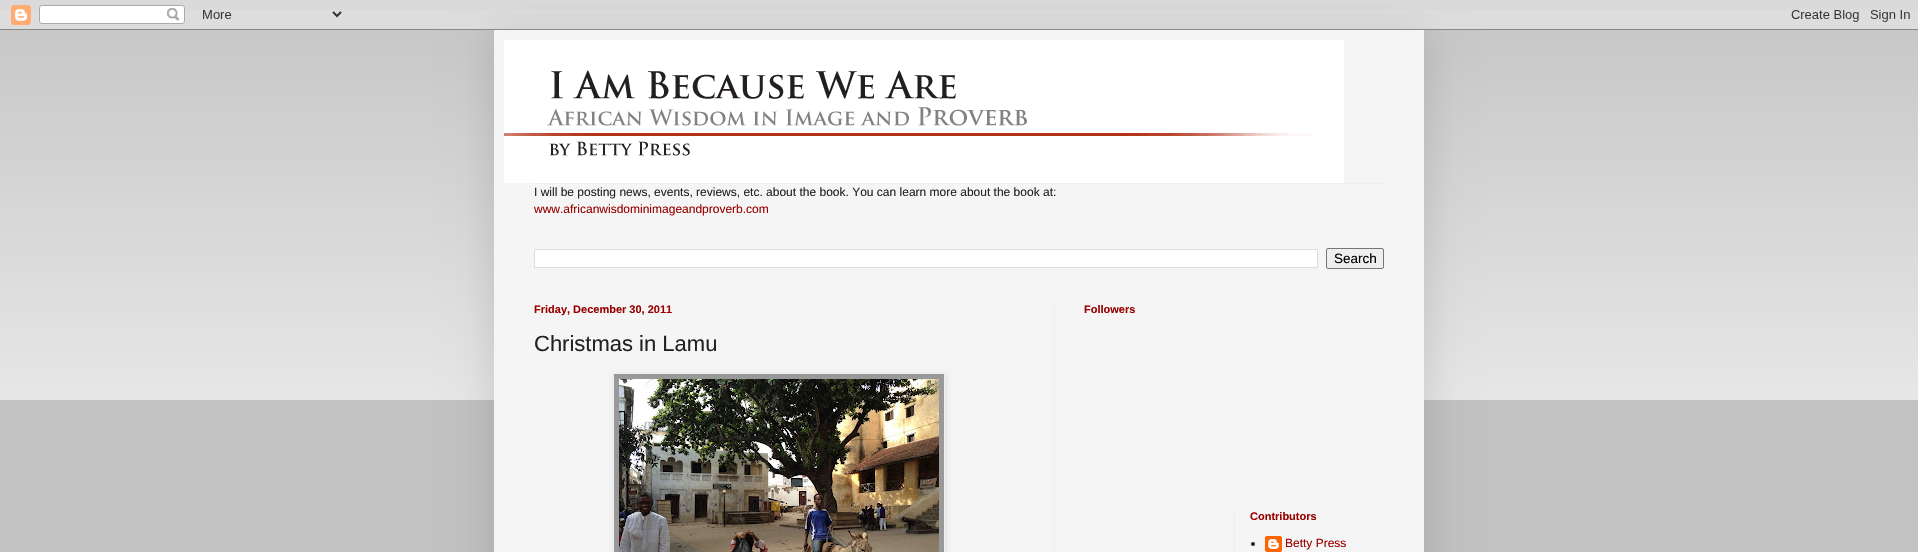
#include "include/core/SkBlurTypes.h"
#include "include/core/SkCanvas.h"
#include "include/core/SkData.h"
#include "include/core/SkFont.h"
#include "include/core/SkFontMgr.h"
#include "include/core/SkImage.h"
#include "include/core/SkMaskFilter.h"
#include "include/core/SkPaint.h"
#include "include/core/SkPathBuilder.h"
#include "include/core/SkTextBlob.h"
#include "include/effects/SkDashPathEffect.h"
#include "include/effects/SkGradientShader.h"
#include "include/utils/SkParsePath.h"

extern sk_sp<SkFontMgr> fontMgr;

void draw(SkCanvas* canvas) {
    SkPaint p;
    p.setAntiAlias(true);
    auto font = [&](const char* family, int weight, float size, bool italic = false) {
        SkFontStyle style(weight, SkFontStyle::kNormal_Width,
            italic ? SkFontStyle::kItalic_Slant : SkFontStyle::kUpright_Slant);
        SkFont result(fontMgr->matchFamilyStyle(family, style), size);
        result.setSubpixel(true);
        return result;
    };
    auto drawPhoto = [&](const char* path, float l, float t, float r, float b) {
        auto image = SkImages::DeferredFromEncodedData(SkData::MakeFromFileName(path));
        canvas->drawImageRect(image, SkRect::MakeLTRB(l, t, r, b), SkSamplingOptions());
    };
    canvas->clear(0xFFC2C2C2);
    drawPhoto("media/2.png", 0, 10, 1918, 400);
    p.setColor(0x26000000);
    p.setMaskFilter(SkMaskFilter::MakeBlur(kNormal_SkBlurStyle, 20));
    canvas->drawRect(SkRect::MakeLTRB(494, 30, 1424, 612), p);
    p.setMaskFilter(nullptr);
    drawPhoto("media/1.png", 0, 0, 1918, 30);
    p.setColor(0xFFF5F5F5);
    canvas->drawRect(SkRect::MakeLTRB(494, 30, 1424, 552), p);
    drawPhoto("media/3.png", 504, 40, 1344, 183);
    p.setColor(0xFFEEEEEE);
    canvas->drawRect(SkRect::MakeLTRB(534, 183, 1384, 184), p);
    auto font1 = font("Liberation Sans", 400, 12);
    p.setColor(0xFF222222);
    canvas->drawString("I will be posting news, events, reviews, etc. about the book. You can learn more about the book at:", 534, 196, font1, p);
    p.setColor(0xFF990000);
    canvas->drawString("www.africanwisdominimageandproverb.com", 534, 213, font1, p);
    p.setColor(0xFFFFFFFF);
    canvas->drawRect(SkRect::MakeLTRB(534.5f, 249.5f, 1317.5f, 267.5f), p);
    p.setStyle(SkPaint::kStroke_Style);
    p.setStrokeWidth(1);
    p.setColor(0xFFDDDDDD);
    canvas->drawRect(SkRect::MakeLTRB(534.5f, 249.5f, 1317.5f, 267.5f), p);
    p.setStyle(SkPaint::kFill_Style);
    p.setColor(0xFFEFEFEF);
    canvas->drawRoundRect(SkRect::MakeLTRB(1326.5f, 248.5f, 1383.5f, 268.5f), 1.5f, 1.5f, p);
    p.setStyle(SkPaint::kStroke_Style);
    p.setColor(0xFF767676);
    canvas->drawRoundRect(SkRect::MakeLTRB(1326.5f, 248.5f, 1383.5f, 268.5f), 1.5f, 1.5f, p);
    auto font2 = font("Liberation Sans", 400, 13.5f);
    p.setStyle(SkPaint::kFill_Style);
    p.setColor(0xFF000000);
    canvas->drawString("Search", 1334, 263, font2, p);
    p.setColor(0xFFEEEEEE);
    canvas->drawRect(SkRect::MakeLTRB(1054, 303, 1055, 552), p);
    auto font3 = font("Liberation Sans", 700, 11);
    p.setColor(0xFF990000);
    canvas->drawString("Friday, December 30, 2011", 534, 313, font3, p);
    auto font4 = font("Liberation Sans", 400, 22);
    p.setColor(0xFF222222);
    canvas->drawString("Christmas in Lamu", 534, 351, font4, p);
    p.setColor(0x1A000000);
    p.setMaskFilter(SkMaskFilter::MakeBlur(kNormal_SkBlurStyle, 2.5f));
    canvas->drawRect(SkRect::MakeLTRB(614, 374, 946, 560), p);
    p.setMaskFilter(nullptr);
    p.setColor(0xFF999999);
    canvas->drawRect(SkRect::MakeLTRB(613.5f, 373.5f, 944.5f, 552.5f), p);
    p.setStyle(SkPaint::kStroke_Style);
    p.setColor(0xFFEEEEEE);
    canvas->drawRect(SkRect::MakeLTRB(613.5f, 373.5f, 944.5f, 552.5f), p);
    drawPhoto("media/4.png", 619, 379, 939, 552);
    p.setStyle(SkPaint::kFill_Style);
    p.setColor(0xFF990000);
    canvas->drawString("Followers", 1084, 313, font3, p);
    p.setColor(0xFFEEEEEE);
    canvas->drawRect(SkRect::MakeLTRB(1234, 510, 1235, 552), p);
    p.setColor(0xFF990000);
    canvas->drawString("Contributors", 1250, 520, font3, p);
    p.setColor(0xFF222222);
    canvas->drawCircle(1253, 544, 2, p);
    drawPhoto("media/5.png", 1265, 536, 1282, 552);
    p.setColor(0xFF990000);
    canvas->drawString("Betty Press", 1285, 547, font1, p);
}
